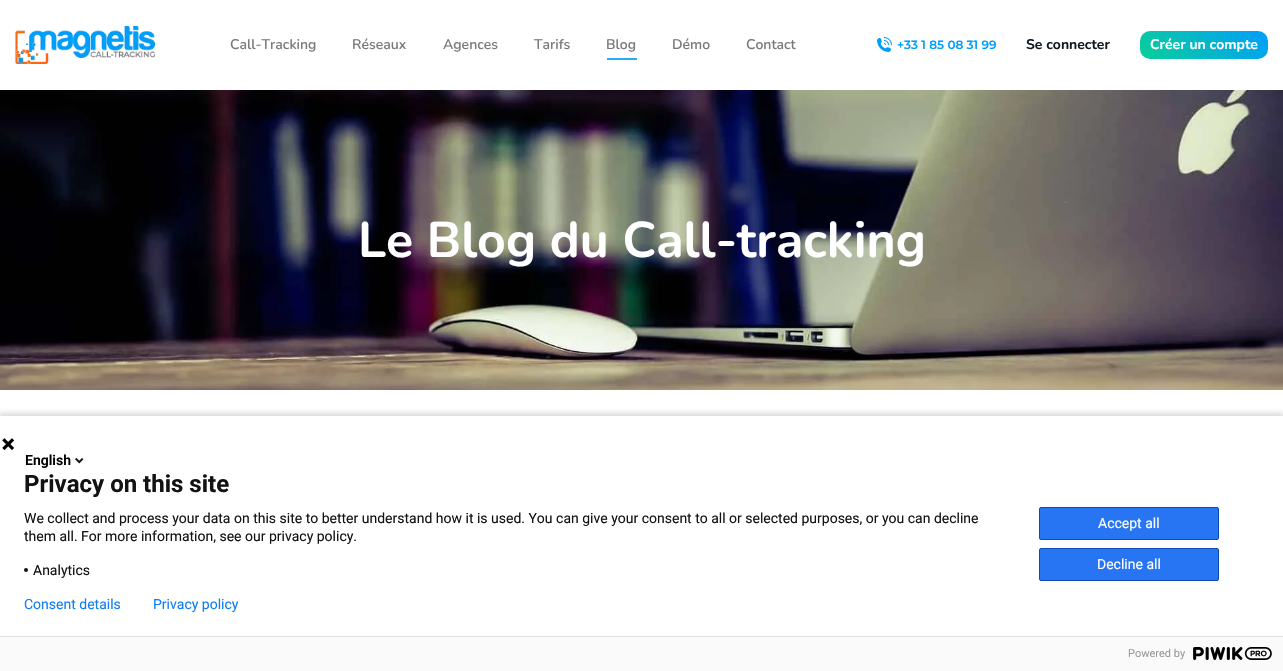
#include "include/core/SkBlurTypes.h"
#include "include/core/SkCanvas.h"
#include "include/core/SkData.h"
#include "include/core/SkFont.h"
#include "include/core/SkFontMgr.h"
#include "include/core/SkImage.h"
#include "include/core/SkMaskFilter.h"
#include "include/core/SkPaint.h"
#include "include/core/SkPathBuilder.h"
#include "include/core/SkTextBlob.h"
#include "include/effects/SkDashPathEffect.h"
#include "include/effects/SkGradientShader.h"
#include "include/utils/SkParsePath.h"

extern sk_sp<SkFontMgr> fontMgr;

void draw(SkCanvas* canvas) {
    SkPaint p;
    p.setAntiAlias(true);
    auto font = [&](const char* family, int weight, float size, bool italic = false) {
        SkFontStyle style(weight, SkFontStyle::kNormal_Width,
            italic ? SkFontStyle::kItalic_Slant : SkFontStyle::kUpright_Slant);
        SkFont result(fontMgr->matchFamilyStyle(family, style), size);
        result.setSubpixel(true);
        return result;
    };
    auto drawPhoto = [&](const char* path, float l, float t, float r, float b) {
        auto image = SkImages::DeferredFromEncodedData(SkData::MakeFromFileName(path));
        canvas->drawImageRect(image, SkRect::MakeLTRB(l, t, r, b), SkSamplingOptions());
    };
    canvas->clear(0xFFFFFFFF);
    drawPhoto("media/1.png", 15, 26, 155, 64);
    auto font1 = font("Nunito", 600, 14);
    p.setColor(0xFF7A7A7A);
    {
        const struct { const char* s; float x, y; } items[] = {
            {"Call-Tracking", 230, 49},
            {"Réseaux", 352, 49},
            {"Agences", 443, 49},
            {"Tarifs", 534, 49},
            {"Blog", 606, 49},
        };
        for (auto [s, x, y] : items) {
            canvas->drawString(s, x, y, font1, p);
        }
    }
    p.setColor(0xFF26ADFC);
    canvas->drawRect(SkRect::MakeLTRB(607, 58, 637, 60), p);
    p.setColor(0xFF7A7A7A);
    canvas->drawString("Démo", 672, 49, font1, p);
    canvas->drawString("Contact", 746, 49, font1, p);
    drawPhoto("media/2.png", 877, 37, 892, 52);
    auto font2 = font("Montserrat", 600, 12);
    p.setColor(0xFF009EFB);
    canvas->drawString("+33 1 85 08 31 99", 897, 49, font2, p);
    auto font3 = font("Nunito", 700, 14);
    p.setColor(0xFF101820);
    canvas->drawString("Se connecter", 1026, 49, font3, p);
    {
        const SkColor colors[] = {0xFF0ACF97, 0xFF009EFB};
        const float stops[] = {0, 1};
        const SkPoint ends[] = {{1165, 84}, {1243, 6}};
        p.setShader(SkGradientShader::MakeLinear(ends, colors, stops, 2, SkTileMode::kClamp));
        p.setAlpha(255);
    }
    canvas->drawRoundRect(SkRect::MakeLTRB(1140, 31, 1268, 59), 10, 10, p);
    p.setShader(nullptr);
    p.setColor(0xFFFFFFFF);
    canvas->drawString("Créer un compte", 1150, 49, font3, p);
    drawPhoto("media/3.png", 0, 90, 1283, 390);
    auto font4 = font("Nunito", 700, 50);
    canvas->drawString("Le Blog du Call-tracking", 358, 257, font4, p);
    p.setColor(0x24000000);
    p.setMaskFilter(SkMaskFilter::MakeBlur(kNormal_SkBlurStyle, 2.5f));
    canvas->drawRect(SkRect::MakeLTRB(-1, 413, 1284, 670), p);
    p.setMaskFilter(nullptr);
    p.setColor(0xFFFFFFFF);
    canvas->drawRect(SkRect::MakeLTRB(0, 416, 1283, 636), p);
    drawPhoto("media/4.png", 2, 438, 15, 451);
    auto font5 = font("Roboto", 600, 14);
    p.setColor(0xFF000000);
    canvas->drawString("English", 25, 465, font5, p);
    drawPhoto("media/5.png", 75, 457, 84, 464);
    auto font6 = font("Roboto", 700, 24);
    p.setColor(0xFF131313);
    canvas->drawString("Privacy on this site", 24, 492, font6, p);
    auto font7 = font("Roboto", 400, 14);
    canvas->drawString("We collect and process your data on this site to better understand how it is used. You can give your consent to all or selected purposes, or you can decline", 24, 523, font7, p);
    canvas->drawString("them all. For more information, see our privacy policy.", 24, 541, font7, p);
    canvas->drawCircle(26, 570, 2, p);
    canvas->drawString("Analytics", 33, 575, font7, p);
    p.setColor(0xFF2775F2);
    canvas->drawRoundRect(SkRect::MakeLTRB(1039.5f, 507.5f, 1218.5f, 539.5f), 1.5f, 1.5f, p);
    p.setStyle(SkPaint::kStroke_Style);
    p.setStrokeWidth(1);
    p.setColor(0xFF0B4BB3);
    canvas->drawRoundRect(SkRect::MakeLTRB(1039.5f, 507.5f, 1218.5f, 539.5f), 1.5f, 1.5f, p);
    p.setStyle(SkPaint::kFill_Style);
    p.setColor(0xFFFFFFFF);
    canvas->drawString("Accept all", 1098, 528, font7, p);
    p.setColor(0xFF2775F2);
    canvas->drawRoundRect(SkRect::MakeLTRB(1039.5f, 548.5f, 1218.5f, 580.5f), 1.5f, 1.5f, p);
    p.setStyle(SkPaint::kStroke_Style);
    p.setColor(0xFF0B4BB3);
    canvas->drawRoundRect(SkRect::MakeLTRB(1039.5f, 548.5f, 1218.5f, 580.5f), 1.5f, 1.5f, p);
    p.setStyle(SkPaint::kFill_Style);
    p.setColor(0xFFFFFFFF);
    canvas->drawString("Decline all", 1097, 569, font7, p);
    p.setColor(0xFF107EF1);
    canvas->drawString("Consent details", 24, 609, font7, p);
    canvas->drawString("Privacy policy", 153, 609, font7, p);
    p.setColor(0xFFFAFAFA);
    canvas->drawRect(SkRect::MakeLTRB(0, 637, 1283, 671), p);
    p.setColor(0xFFDDDDDD);
    canvas->drawRect(SkRect::MakeLTRB(0, 636, 1283, 637), p);
    auto font8 = font("Roboto", 400, 11);
    p.setColor(0xFF999999);
    canvas->drawString("Powered by", 1128, 657, font8, p);
    drawPhoto("media/6.png", 1193, 647, 1272, 660);
}
